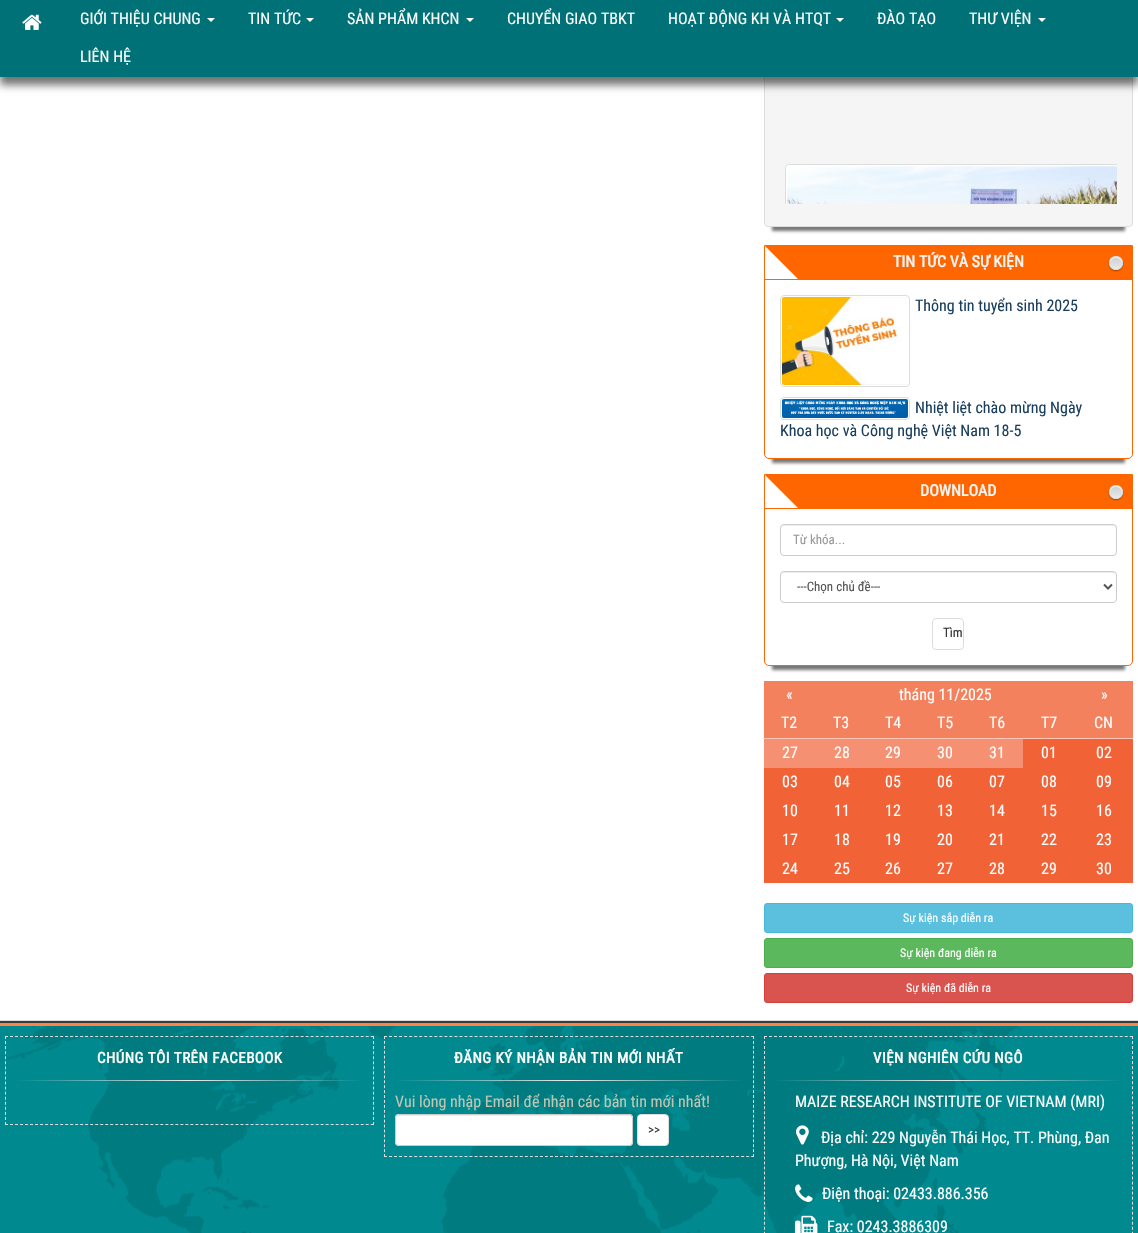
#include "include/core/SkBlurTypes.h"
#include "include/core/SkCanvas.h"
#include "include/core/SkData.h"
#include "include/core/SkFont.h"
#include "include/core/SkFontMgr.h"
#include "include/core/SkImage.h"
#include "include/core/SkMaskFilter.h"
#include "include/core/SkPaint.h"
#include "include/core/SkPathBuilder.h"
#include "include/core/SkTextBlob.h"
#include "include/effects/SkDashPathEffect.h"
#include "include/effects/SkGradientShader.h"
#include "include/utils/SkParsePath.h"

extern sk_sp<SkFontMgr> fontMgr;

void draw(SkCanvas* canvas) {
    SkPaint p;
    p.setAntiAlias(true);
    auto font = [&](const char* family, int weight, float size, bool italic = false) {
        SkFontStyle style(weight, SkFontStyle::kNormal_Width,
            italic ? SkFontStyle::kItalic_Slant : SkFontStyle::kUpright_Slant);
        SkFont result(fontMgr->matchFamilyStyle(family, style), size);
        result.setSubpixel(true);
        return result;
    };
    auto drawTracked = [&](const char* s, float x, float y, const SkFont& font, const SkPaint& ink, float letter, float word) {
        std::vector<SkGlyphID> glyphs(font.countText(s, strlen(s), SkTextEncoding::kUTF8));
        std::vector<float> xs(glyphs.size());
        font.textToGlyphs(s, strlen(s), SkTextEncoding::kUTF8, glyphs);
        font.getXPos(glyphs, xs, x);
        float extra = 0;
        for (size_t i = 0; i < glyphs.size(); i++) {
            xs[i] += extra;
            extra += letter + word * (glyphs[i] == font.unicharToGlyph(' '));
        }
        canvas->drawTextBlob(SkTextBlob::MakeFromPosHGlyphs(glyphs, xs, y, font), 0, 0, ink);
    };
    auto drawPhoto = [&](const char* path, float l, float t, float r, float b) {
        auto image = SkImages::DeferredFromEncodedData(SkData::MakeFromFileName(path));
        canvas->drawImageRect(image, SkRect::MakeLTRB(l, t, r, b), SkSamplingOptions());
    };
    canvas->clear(0xFFFFFFFF);
    p.setColor(0xFF777777);
    p.setMaskFilter(SkMaskFilter::MakeBlur(kNormal_SkBlurStyle, 1.5f));
    canvas->drawRect(SkRect::MakeLTRB(772, -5, 1125, 231), p);
    p.setMaskFilter(nullptr);
    p.setColor(0xFFF5F5F5);
    canvas->drawRoundRect(SkRect::MakeLTRB(764.5f, -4.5f, 1132.5f, 226.5f), 3.5f, 3.5f, p);
    p.setStyle(SkPaint::kStroke_Style);
    p.setStrokeWidth(1);
    p.setColor(0xFFDDDDDD);
    canvas->drawRoundRect(SkRect::MakeLTRB(764.5f, -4.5f, 1132.5f, 226.5f), 3.5f, 3.5f, p);
    p.setStyle(SkPaint::kFill_Style);
    p.setColor(0x8C000000);
    p.setMaskFilter(SkMaskFilter::MakeBlur(kNormal_SkBlurStyle, 4));
    canvas->drawRect(SkRect::MakeLTRB(0, 8, 1138, 85), p);
    p.setMaskFilter(nullptr);
    p.setColor(0xFF007176);
    canvas->drawRect(SkRect::MakeLTRB(0, 0, 1138, 77), p);
    drawPhoto("media/1.png", 22, 14, 42, 30);
    auto font1 = font("Roboto Condensed", 400, 16);
    p.setColor(0xFFFFFFFF);
    canvas->drawString("GIỚI THIỆU CHUNG", 80, 24, font1, p);
    canvas->drawPath(SkPathBuilder().moveTo(207, 18).lineTo(215, 18).lineTo(211, 22).close().detach(), p);
    canvas->drawString("TIN TỨC", 248, 24, font1, p);
    canvas->drawPath(SkPathBuilder().moveTo(306, 18).lineTo(314, 18).lineTo(310, 22).close().detach(), p);
    canvas->drawString("SẢN PHẨM KHCN", 347, 24, font1, p);
    canvas->drawPath(SkPathBuilder().moveTo(466, 18).lineTo(474, 18).lineTo(470, 22).close().detach(), p);
    canvas->drawString("CHUYỂN GIAO TBKT", 507, 24, font1, p);
    canvas->drawString("HOẠT ĐỘNG KH VÀ HTQT", 668, 24, font1, p);
    canvas->drawPath(SkPathBuilder().moveTo(836, 18).lineTo(844, 18).lineTo(840, 22).close().detach(), p);
    canvas->drawString("ĐÀO TẠO", 877, 24, font1, p);
    canvas->drawString("THƯ VIỆN", 969, 24, font1, p);
    canvas->drawPath(SkPathBuilder().moveTo(1038, 18).lineTo(1046, 18).lineTo(1042, 22).close().detach(), p);
    canvas->drawString("LIÊN HỆ", 80, 62, font1, p);
    canvas->drawPath(SkPathBuilder().moveTo(789, 164).lineTo(1117, 164).lineTo(1117, 204).lineTo(785, 204).lineTo(785, 168).cubicTo(785, 166, 787, 164, 789, 164).close().detach(), p);
    canvas->save();
    canvas->clipRect(SkRect::MakeLTRB(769, 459, 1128, 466));
    p.setColor(0xFF777777);
    p.setMaskFilter(SkMaskFilter::MakeBlur(kNormal_SkBlurStyle, 1.5f));
    canvas->drawRect(SkRect::MakeLTRB(772, 265, 1125, 463), p);
    p.setMaskFilter(nullptr);
    canvas->restore();
    p.setStyle(SkPaint::kStroke_Style);
    p.setColor(0xFFFF6600);
    canvas->drawPath(SkPathBuilder().moveTo(764.5f, 245.5f).lineTo(1132.5f, 245.5f).lineTo(1132.5f, 454).cubicTo(1132.5f, 456.5f, 1130.5f, 458.5f, 1128, 458.5f).lineTo(769, 458.5f).cubicTo(766.5f, 458.5f, 764.5f, 456.5f, 764.5f, 454).close().detach(), p);
    p.setStyle(SkPaint::kFill_Style);
    canvas->drawRect(SkRect::MakeLTRB(765, 246, 1132, 280), p);
    drawPhoto("media/3.png", 765, 246, 1124, 279);
    p.setStyle(SkPaint::kStroke_Style);
    p.setColor(0xFFDDDDDD);
    canvas->drawRoundRect(SkRect::MakeLTRB(780.5f, 295.5f, 909.5f, 386.5f), 3.5f, 3.5f, p);
    drawPhoto("media/4.png", 782, 297, 907, 385);
    canvas->save();
    canvas->clipRect(SkRect::MakeLTRB(780, 4, 1117, 204));
    canvas->drawRoundRect(SkRect::MakeLTRB(785.5f, 164.5f, 1121.5f, 389.5f), 3.5f, 3.5f, p);
    canvas->restore();
    drawPhoto("media/2.png", 787, 166, 1117, 204);
    auto font2 = font("Roboto Condensed", 700, 16);
    p.setStyle(SkPaint::kFill_Style);
    p.setColor(0xFFF5F5F5);
    canvas->drawString("TIN TỨC VÀ SỰ KIỆN", 893, 267, font2, p);
    p.setColor(0xFF1A3F5E);
    canvas->drawString("Thông tin tuyển sinh 2025", 915, 311, font1, p);
    p.setStyle(SkPaint::kStroke_Style);
    p.setColor(0xFFDDDDDD);
    canvas->drawRoundRect(SkRect::MakeLTRB(780.5f, 397.5f, 909.5f, 419.5f), 3.5f, 3.5f, p);
    drawPhoto("media/5.png", 782, 399, 908, 418);
    p.setStyle(SkPaint::kFill_Style);
    p.setColor(0xFF1A3F5E);
    canvas->drawString("Nhiệt liệt chào mừng Ngày", 915, 413, font1, p);
    canvas->drawString("Khoa học và Công nghệ Việt Nam 18-5", 780, 436, font1, p);
    canvas->save();
    canvas->clipRect(SkRect::MakeLTRB(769, 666, 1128, 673));
    p.setColor(0xFF777777);
    p.setMaskFilter(SkMaskFilter::MakeBlur(kNormal_SkBlurStyle, 1.5f));
    canvas->drawRect(SkRect::MakeLTRB(772, 494, 1125, 670), p);
    p.setMaskFilter(nullptr);
    canvas->restore();
    p.setStyle(SkPaint::kStroke_Style);
    p.setColor(0xFFFF6600);
    canvas->drawPath(SkPathBuilder().moveTo(764.5f, 474.5f).lineTo(1132.5f, 474.5f).lineTo(1132.5f, 661).cubicTo(1132.5f, 663.5f, 1130.5f, 665.5f, 1128, 665.5f).lineTo(769, 665.5f).cubicTo(766.5f, 665.5f, 764.5f, 663.5f, 764.5f, 661).close().detach(), p);
    p.setStyle(SkPaint::kFill_Style);
    canvas->drawRect(SkRect::MakeLTRB(765, 475, 1132, 509), p);
    drawPhoto("media/3.png", 765, 475, 1124, 508);
    p.setColor(0xFFF5F5F5);
    canvas->drawString("DOWNLOAD", 920, 496, font2, p);
    p.setColor(0xFFECECEC);
    canvas->drawPath(SkPathBuilder().moveTo(784, 526).lineTo(1113, 526).cubicTo(1115, 526, 1116, 527, 1116, 529).cubicTo(1116, 527, 1115, 525, 1113, 525).lineTo(784, 525).cubicTo(782, 525, 781, 527, 781, 529).cubicTo(781, 527, 782, 526, 784, 526).close().detach(), p);
    p.setStyle(SkPaint::kStroke_Style);
    p.setColor(0xFFCCCCCC);
    canvas->drawRoundRect(SkRect::MakeLTRB(780.5f, 524.5f, 1116.5f, 555.5f), 3.5f, 3.5f, p);
    auto font3 = font("Roboto Condensed", 400, 13);
    p.setStyle(SkPaint::kFill_Style);
    p.setColor(0xFF999999);
    canvas->drawString("Từ khóa...", 793, 544, font3, p);
    p.setColor(0xFFECECEC);
    canvas->drawPath(SkPathBuilder().moveTo(784, 573).lineTo(1113, 573).cubicTo(1115, 573, 1116, 574, 1116, 576).cubicTo(1116, 574, 1115, 572, 1113, 572).lineTo(784, 572).cubicTo(782, 572, 781, 574, 781, 576).cubicTo(781, 574, 782, 573, 784, 573).close().detach(), p);
    p.setStyle(SkPaint::kStroke_Style);
    p.setColor(0xFFCCCCCC);
    canvas->drawRoundRect(SkRect::MakeLTRB(780.5f, 571.5f, 1116.5f, 602.5f), 3.5f, 3.5f, p);
    p.setStrokeWidth(2);
    p.setColor(0xFF555555);
    canvas->drawPath(SkPathBuilder().moveTo(1104, 584.5f).lineTo(1108, 588.5f).lineTo(1112, 584.5f).detach(), p);
    p.setStyle(SkPaint::kFill_Style);
    canvas->drawString("---Chọn chủ đề---", 797, 591, font3, p);
    p.setStyle(SkPaint::kStroke_Style);
    p.setStrokeWidth(1);
    p.setColor(0xFFDDDDDD);
    canvas->drawRoundRect(SkRect::MakeLTRB(932.5f, 618.5f, 963.5f, 649.5f), 3.5f, 3.5f, p);
    p.setStyle(SkPaint::kFill_Style);
    p.setColor(0xFF333333);
    canvas->drawString("Tìm", 943, 637, font3, p);
    p.setColor(0xFFF59172);
    canvas->drawRect(SkRect::MakeLTRB(764, 739, 1023, 768), p);
    p.setColor(0xFFF4815E);
    canvas->drawRect(SkRect::MakeLTRB(764, 681, 1133, 709), p);
    p.setColor(0xFFFFFFFF);
    {
        const struct { const char* s; float x, y; } items[] = {
            {"«", 786, 700},
            {"tháng 11/2025", 899, 700},
            {"»", 1101, 700},
        };
        for (auto [s, x, y] : items) {
            canvas->drawString(s, x, y, font1, p);
        }
    }
    p.setColor(0xFFF4815E);
    canvas->drawRect(SkRect::MakeLTRB(764, 709, 1133, 738), p);
    p.setColor(0xFFFFFFFF);
    {
        const struct { const char* s; float x, y; } items[] = {
            {"T2", 781, 728},
            {"T3", 833, 728},
            {"T4", 885, 728},
            {"T5", 937, 728},
            {"T6", 989, 728},
            {"T7", 1041, 728},
        };
        for (auto [s, x, y] : items) {
            canvas->drawString(s, x, y, font1, p);
        }
    }
    p.setColor(0xFFFFC8B7);
    canvas->drawRect(SkRect::MakeLTRB(763, 738, 1133, 739), p);
    p.setColor(0xFFFFFFFF);
    {
        const struct { const char* s; float x, y; } items[] = {
            {"CN", 1094, 728},
            {"27", 782, 758},
            {"28", 834, 758},
            {"29", 885, 758},
            {"30", 937, 758},
            {"31", 989, 758},
        };
        for (auto [s, x, y] : items) {
            canvas->drawString(s, x, y, font1, p);
        }
    }
    p.setColor(0xFFF16236);
    canvas->drawRect(SkRect::MakeLTRB(1023, 739, 1133, 768), p);
    p.setColor(0xFFFFFFFF);
    canvas->drawString("01", 1041, 758, font1, p);
    canvas->drawString("02", 1096, 758, font1, p);
    p.setColor(0xFFF16236);
    canvas->drawRect(SkRect::MakeLTRB(764, 768, 1133, 797), p);
    p.setColor(0xFFFFFFFF);
    {
        const struct { const char* s; float x, y; } items[] = {
            {"03", 782, 787},
            {"04", 834, 787},
            {"05", 885, 787},
            {"06", 937, 787},
            {"07", 989, 787},
            {"08", 1041, 787},
            {"09", 1096, 787},
        };
        for (auto [s, x, y] : items) {
            canvas->drawString(s, x, y, font1, p);
        }
    }
    p.setColor(0xFFF16236);
    canvas->drawRect(SkRect::MakeLTRB(764, 797, 1133, 826), p);
    p.setColor(0xFFFFFFFF);
    {
        const struct { const char* s; float x, y; } items[] = {
            {"10", 782, 816},
            {"11", 834, 816},
            {"12", 885, 816},
            {"13", 937, 816},
            {"14", 989, 816},
            {"15", 1041, 816},
            {"16", 1096, 816},
        };
        for (auto [s, x, y] : items) {
            canvas->drawString(s, x, y, font1, p);
        }
    }
    p.setColor(0xFFF16236);
    canvas->drawRect(SkRect::MakeLTRB(764, 826, 1133, 855), p);
    p.setColor(0xFFFFFFFF);
    {
        const struct { const char* s; float x, y; } items[] = {
            {"17", 782, 845},
            {"18", 834, 845},
            {"19", 885, 845},
            {"20", 937, 845},
            {"21", 989, 845},
            {"22", 1041, 845},
            {"23", 1096, 845},
        };
        for (auto [s, x, y] : items) {
            canvas->drawString(s, x, y, font1, p);
        }
    }
    p.setColor(0xFFF16236);
    canvas->drawRect(SkRect::MakeLTRB(764, 855, 1133, 883), p);
    p.setColor(0xFFFFFFFF);
    {
        const struct { const char* s; float x, y; } items[] = {
            {"24", 782, 874},
            {"25", 834, 874},
            {"26", 885, 874},
            {"27", 937, 874},
            {"28", 989, 874},
            {"29", 1041, 874},
            {"30", 1096, 874},
        };
        for (auto [s, x, y] : items) {
            canvas->drawString(s, x, y, font1, p);
        }
    }
    p.setColor(0xFF5BC0DE);
    canvas->drawRoundRect(SkRect::MakeLTRB(764.5f, 903.5f, 1132.5f, 932.5f), 2.5f, 2.5f, p);
    p.setStyle(SkPaint::kStroke_Style);
    p.setColor(0xFF46B8DA);
    canvas->drawRoundRect(SkRect::MakeLTRB(764.5f, 903.5f, 1132.5f, 932.5f), 2.5f, 2.5f, p);
    auto font4 = font("Roboto Condensed", 400, 12);
    p.setStyle(SkPaint::kFill_Style);
    p.setColor(0xFFFFFFFF);
    canvas->drawString("Sự kiện sắp diễn ra", 903, 922, font4, p);
    p.setColor(0xFF5CB85C);
    canvas->drawRoundRect(SkRect::MakeLTRB(764.5f, 938.5f, 1132.5f, 967.5f), 2.5f, 2.5f, p);
    p.setStyle(SkPaint::kStroke_Style);
    p.setColor(0xFF4CAE4C);
    canvas->drawRoundRect(SkRect::MakeLTRB(764.5f, 938.5f, 1132.5f, 967.5f), 2.5f, 2.5f, p);
    p.setStyle(SkPaint::kFill_Style);
    p.setColor(0xFFFFFFFF);
    canvas->drawString("Sự kiện đang diễn ra", 900, 957, font4, p);
    p.setColor(0xFFD9534F);
    canvas->drawRoundRect(SkRect::MakeLTRB(764.5f, 973.5f, 1132.5f, 1002.5f), 2.5f, 2.5f, p);
    p.setStyle(SkPaint::kStroke_Style);
    p.setColor(0xFFD43F3A);
    canvas->drawRoundRect(SkRect::MakeLTRB(764.5f, 973.5f, 1132.5f, 1002.5f), 2.5f, 2.5f, p);
    p.setStyle(SkPaint::kFill_Style);
    p.setColor(0xFFFFFFFF);
    canvas->drawString("Sự kiện đã diễn ra", 906, 992, font4, p);
    p.setColor(0xFF3B3A3B);
    p.setMaskFilter(SkMaskFilter::MakeBlur(kNormal_SkBlurStyle, 0.5f));
    canvas->drawRect(SkRect::MakeLTRB(-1, 1021, 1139, 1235), p);
    p.setMaskFilter(nullptr);
    p.setColor(0xFF008A90);
    canvas->drawRect(SkRect::MakeLTRB(0, 1026, 1138, 1233), p);
    drawPhoto("media/6.png", 0, 1026, 1022, 1233);
    p.setColor(0xFFFF8247);
    canvas->drawRect(SkRect::MakeLTRB(0, 1023, 1138, 1026), p);
    p.setStyle(SkPaint::kStroke_Style);
    p.setColor(0xFFDDDDDD);
    p.setPathEffect(SkDashPathEffect::Make({{3, 2.01f}}, 0));
    canvas->drawPath(SkPathBuilder().moveTo(5, 1036.5f).lineTo(374, 1036.5f).detach(), p);
    p.setPathEffect(nullptr);
    p.setPathEffect(SkDashPathEffect::Make({{3, 2.06f}}, 0));
    canvas->drawPath(SkPathBuilder().moveTo(373.5f, 1036).lineTo(373.5f, 1125).detach(), p);
    p.setPathEffect(nullptr);
    p.setPathEffect(SkDashPathEffect::Make({{3, 2.01f}}, 0));
    canvas->drawPath(SkPathBuilder().moveTo(5, 1124.5f).lineTo(374, 1124.5f).detach(), p);
    p.setPathEffect(nullptr);
    p.setPathEffect(SkDashPathEffect::Make({{3, 2.06f}}, 0));
    canvas->drawPath(SkPathBuilder().moveTo(5.5f, 1036).lineTo(5.5f, 1125).detach(), p);
    p.setPathEffect(nullptr);
    auto font5 = font("Roboto Condensed", 700, 15);
    p.setStyle(SkPaint::kFill_Style);
    p.setColor(0xFFFFFFFF);
    drawTracked("CHÚNG TÔI TRÊN FACEBOOK", 97, 1063, font5, p, 0.5f, 0);
    {
        const SkColor colors[] = {0x00E9EBEE, 0xFFE9EBEE, 0x00E9EBEE};
        const float stops[] = {0, 0.5f, 1};
        const SkPoint ends[] = {{16, 1081}, {363, 1081}};
        p.setShader(SkGradientShader::MakeLinear(ends, colors, stops, 3, SkTileMode::kClamp));
        p.setAlpha(255);
    }
    canvas->drawRect(SkRect::MakeLTRB(16, 1080, 363, 1081), p);
    p.setStyle(SkPaint::kStroke_Style);
    p.setShader(nullptr);
    p.setColor(0xFFDDDDDD);
    p.setPathEffect(SkDashPathEffect::Make({{3, 2.03f}}, 0));
    canvas->drawPath(SkPathBuilder().moveTo(384, 1036.5f).lineTo(754, 1036.5f).detach(), p);
    p.setPathEffect(nullptr);
    p.setPathEffect(SkDashPathEffect::Make({{3, 1.92f}}, 0));
    canvas->drawPath(SkPathBuilder().moveTo(753.5f, 1036).lineTo(753.5f, 1157).detach(), p);
    p.setPathEffect(nullptr);
    p.setPathEffect(SkDashPathEffect::Make({{3, 2.03f}}, 0));
    canvas->drawPath(SkPathBuilder().moveTo(384, 1156.5f).lineTo(754, 1156.5f).detach(), p);
    p.setPathEffect(nullptr);
    p.setPathEffect(SkDashPathEffect::Make({{3, 1.92f}}, 0));
    canvas->drawPath(SkPathBuilder().moveTo(384.5f, 1036).lineTo(384.5f, 1157).detach(), p);
    p.setPathEffect(nullptr);
    p.setStyle(SkPaint::kFill_Style);
    p.setColor(0xFFFFFFFF);
    drawTracked("ĐĂNG KÝ NHẬN BẢN TIN MỚI NHẤT", 454, 1063, font5, p, 0.5f, 0);
    {
        const SkColor colors[] = {0x00E9EBEE, 0xFFE9EBEE, 0x00E9EBEE};
        const float stops[] = {0, 0.5f, 1};
        const SkPoint ends[] = {{395, 1081}, {743, 1081}};
        p.setShader(SkGradientShader::MakeLinear(ends, colors, stops, 3, SkTileMode::kClamp));
        p.setAlpha(255);
    }
    canvas->drawRect(SkRect::MakeLTRB(395, 1080, 743, 1081), p);
    p.setShader(nullptr);
    p.setColor(0xFFC0C5B1);
    canvas->drawString("Vui lòng nhập Email để nhận các bản tin mới nhất!", 395, 1107, font1, p);
    p.setColor(0xFFFFFFFF);
    canvas->drawRoundRect(SkRect::MakeLTRB(395, 1114, 633, 1146), 4, 4, p);
    p.setColor(0xFFECECEC);
    canvas->drawPath(SkPathBuilder().moveTo(399, 1116).lineTo(630, 1116).lineTo(632, 1117).lineTo(632, 1119).cubicTo(632, 1117, 631, 1115, 629, 1115).lineTo(399, 1115).cubicTo(397, 1115, 396, 1117, 396, 1119).cubicTo(396, 1117, 397, 1116, 399, 1116).close().detach(), p);
    p.setStyle(SkPaint::kStroke_Style);
    p.setColor(0xFFCCCCCC);
    canvas->drawRoundRect(SkRect::MakeLTRB(395.5f, 1114.5f, 632.5f, 1145.5f), 3.5f, 3.5f, p);
    p.setStyle(SkPaint::kFill_Style);
    p.setColor(0xFFFFFFFF);
    canvas->drawRoundRect(SkRect::MakeLTRB(637.5f, 1114.5f, 668.5f, 1145.5f), 3.5f, 3.5f, p);
    p.setStyle(SkPaint::kStroke_Style);
    p.setColor(0xFFDDDDDD);
    canvas->drawRoundRect(SkRect::MakeLTRB(637.5f, 1114.5f, 668.5f, 1145.5f), 3.5f, 3.5f, p);
    p.setStyle(SkPaint::kFill_Style);
    p.setColor(0xFF333333);
    canvas->drawString(">>", 648, 1134, font3, p);
    p.setStyle(SkPaint::kStroke_Style);
    p.setColor(0xFFDDDDDD);
    p.setPathEffect(SkDashPathEffect::Make({{3, 2.01f}}, 0));
    canvas->drawPath(SkPathBuilder().moveTo(764, 1036.5f).lineTo(1133, 1036.5f).detach(), p);
    p.setPathEffect(nullptr);
    p.setPathEffect(SkDashPathEffect::Make({{3, 2.02f}}, 0));
    canvas->drawPath(SkPathBuilder().moveTo(1132.5f, 1036).lineTo(1132.5f, 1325).detach(), p);
    p.setPathEffect(nullptr);
    p.setPathEffect(SkDashPathEffect::Make({{3, 2.02f}}, 0));
    canvas->drawPath(SkPathBuilder().moveTo(764.5f, 1036).lineTo(764.5f, 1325).detach(), p);
    p.setPathEffect(nullptr);
    p.setStyle(SkPaint::kFill_Style);
    p.setColor(0xFFFFFFFF);
    drawTracked("VIỆN NGHIÊN CỨU NGÔ", 873, 1063, font5, p, 0.5f, 0);
    {
        const SkColor colors[] = {0x00E9EBEE, 0xFFE9EBEE, 0x00E9EBEE};
        const float stops[] = {0, 0.5f, 1};
        const SkPoint ends[] = {{775, 1081}, {1122, 1081}};
        p.setShader(SkGradientShader::MakeLinear(ends, colors, stops, 3, SkTileMode::kClamp));
        p.setAlpha(255);
    }
    canvas->drawRect(SkRect::MakeLTRB(775, 1080, 1122, 1081), p);
    p.setShader(nullptr);
    p.setColor(0xFFFFFFFF);
    canvas->drawString("MAIZE RESEARCH INSTITUTE OF VIETNAM (MRI)", 795, 1107, font1, p);
    drawPhoto("media/7.png", 796, 1125, 809, 1145);
    canvas->drawString("Địa chỉ: 229 Nguyễn Thái Học, TT. Phùng, Đan", 821, 1143, font1, p);
    canvas->drawString("Phượng, Hà Nội, Việt Nam", 795, 1166, font1, p);
    drawPhoto("media/8.png", 795, 1184, 813, 1202);
    canvas->drawString("Điện thoại: 02433.886.356", 822, 1199, font1, p);
    drawPhoto("media/9.png", 795, 1215, 818, 1233);
    canvas->drawString("Fax: 0243.3886309", 827, 1232, font1, p);
}
